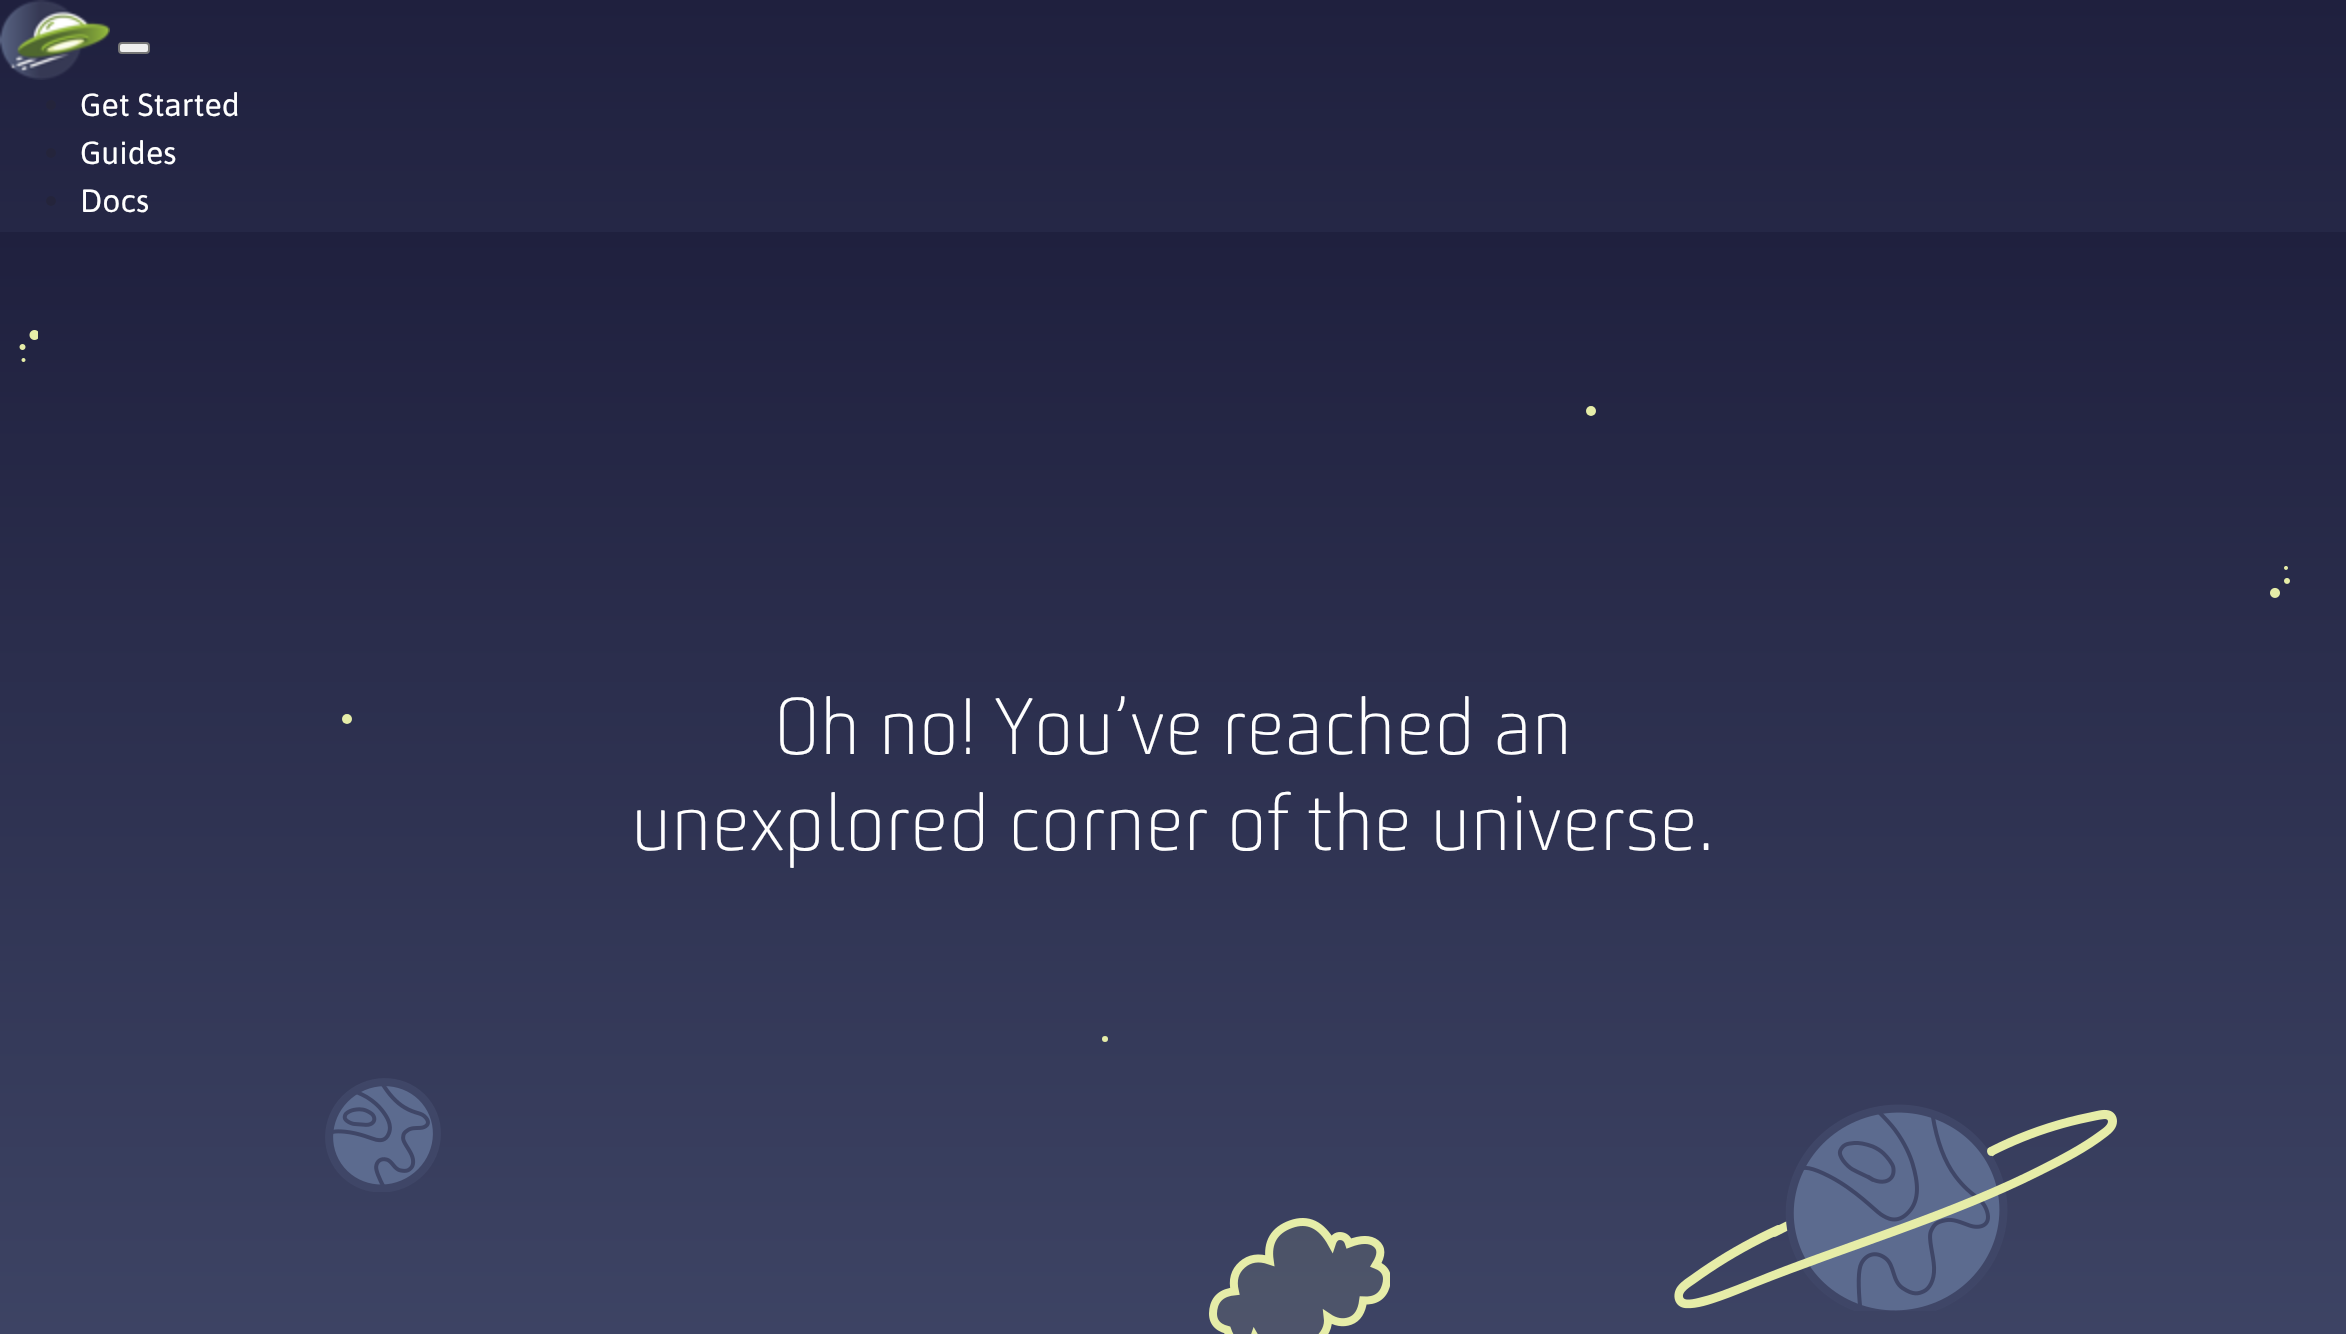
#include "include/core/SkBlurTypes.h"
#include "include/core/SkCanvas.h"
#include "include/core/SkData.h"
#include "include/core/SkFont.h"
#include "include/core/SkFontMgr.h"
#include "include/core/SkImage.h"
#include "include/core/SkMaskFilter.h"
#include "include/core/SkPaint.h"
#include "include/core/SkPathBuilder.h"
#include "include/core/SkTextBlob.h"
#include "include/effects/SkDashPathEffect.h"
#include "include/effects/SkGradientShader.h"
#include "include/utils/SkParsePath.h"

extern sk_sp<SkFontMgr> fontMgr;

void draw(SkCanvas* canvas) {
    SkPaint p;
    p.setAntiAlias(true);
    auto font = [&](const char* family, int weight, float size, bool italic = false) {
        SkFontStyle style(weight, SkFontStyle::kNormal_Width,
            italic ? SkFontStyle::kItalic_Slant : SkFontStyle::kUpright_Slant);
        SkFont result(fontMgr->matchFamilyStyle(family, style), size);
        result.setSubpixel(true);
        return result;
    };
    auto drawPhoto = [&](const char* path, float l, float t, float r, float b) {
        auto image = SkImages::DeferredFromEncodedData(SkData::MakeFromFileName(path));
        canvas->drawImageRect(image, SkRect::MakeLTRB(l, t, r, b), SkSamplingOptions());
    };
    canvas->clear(0xFFFFFFFF);
    {
        const SkColor colors[] = {0xFF515B7D, 0xFF1F203E};
        const float stops[] = {0.09f, 1};
        const SkPoint ends[] = {{1173, 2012}, {1173, 0}};
        p.setShader(SkGradientShader::MakeLinear(ends, colors, stops, 2, SkTileMode::kClamp));
        p.setAlpha(255);
    }
    canvas->drawRect(SkRect::MakeLTRB(0, 0, 2346, 232), p);
    drawPhoto("media/1.png", 0, 0, 110, 80);
    p.setShader(nullptr);
    p.setColor(0xFFEFEFEF);
    canvas->drawRoundRect(SkRect::MakeLTRB(119, 43, 149, 53), 3, 3, p);
    p.setStyle(SkPaint::kStroke_Style);
    p.setStrokeWidth(2);
    p.setColor(0xFF767676);
    canvas->drawRoundRect(SkRect::MakeLTRB(119, 43, 149, 53), 3, 3, p);
    p.setStyle(SkPaint::kFill_Style);
    p.setColor(0xFF24243B);
    canvas->drawCircle(51, 105, 5, p);
    auto font1 = font("Asap", 400, 32);
    p.setColor(0xFFFFFFFF);
    canvas->drawString("Get Started", 80, 116, font1, p);
    p.setColor(0xFF24243B);
    canvas->drawCircle(51, 153, 5, p);
    p.setColor(0xFFFFFFFF);
    canvas->drawString("Guides", 80, 164, font1, p);
    p.setColor(0xFF24243B);
    canvas->drawCircle(51, 201, 5, p);
    p.setColor(0xFFFFFFFF);
    canvas->drawString("Docs", 80, 212, font1, p);
    {
        const SkColor colors[] = {0xFF515B7D, 0xFF1F203E};
        const float stops[] = {0.09f, 1};
        const SkPoint ends[] = {{1173, 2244}, {1173, 232}};
        p.setShader(SkGradientShader::MakeLinear(ends, colors, stops, 2, SkTileMode::kClamp));
        p.setAlpha(255);
    }
    canvas->drawRect(SkRect::MakeLTRB(0, 232, 2346, 1334), p);
    drawPhoto("media/2.png", 19, 330, 38, 362);
    p.setShader(nullptr);
    p.setColor(0xFFE6EDA8);
    canvas->drawCircle(1591, 411, 5, p);
    drawPhoto("media/3.png", 2270, 566, 2290, 598);
    canvas->drawCircle(347, 719, 5, p);
    auto font2 = font("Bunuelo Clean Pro", 300, 80);
    p.setColor(0xFFFFFFFF);
    canvas->drawString("Oh no! You’ve reached an", 774, 754, font2, p);
    canvas->drawString("unexplored corner of the universe.", 631, 850, font2, p);
    p.setColor(0xFFE6EDA8);
    canvas->drawCircle(1105, 1039, 3, p);
    drawPhoto("media/4.png", 325, 1078, 441, 1192);
    drawPhoto("media/5.png", 1209, 1218, 1390, 1334);
    drawPhoto("media/6.png", 1674, 1104, 2117, 1311);
}
